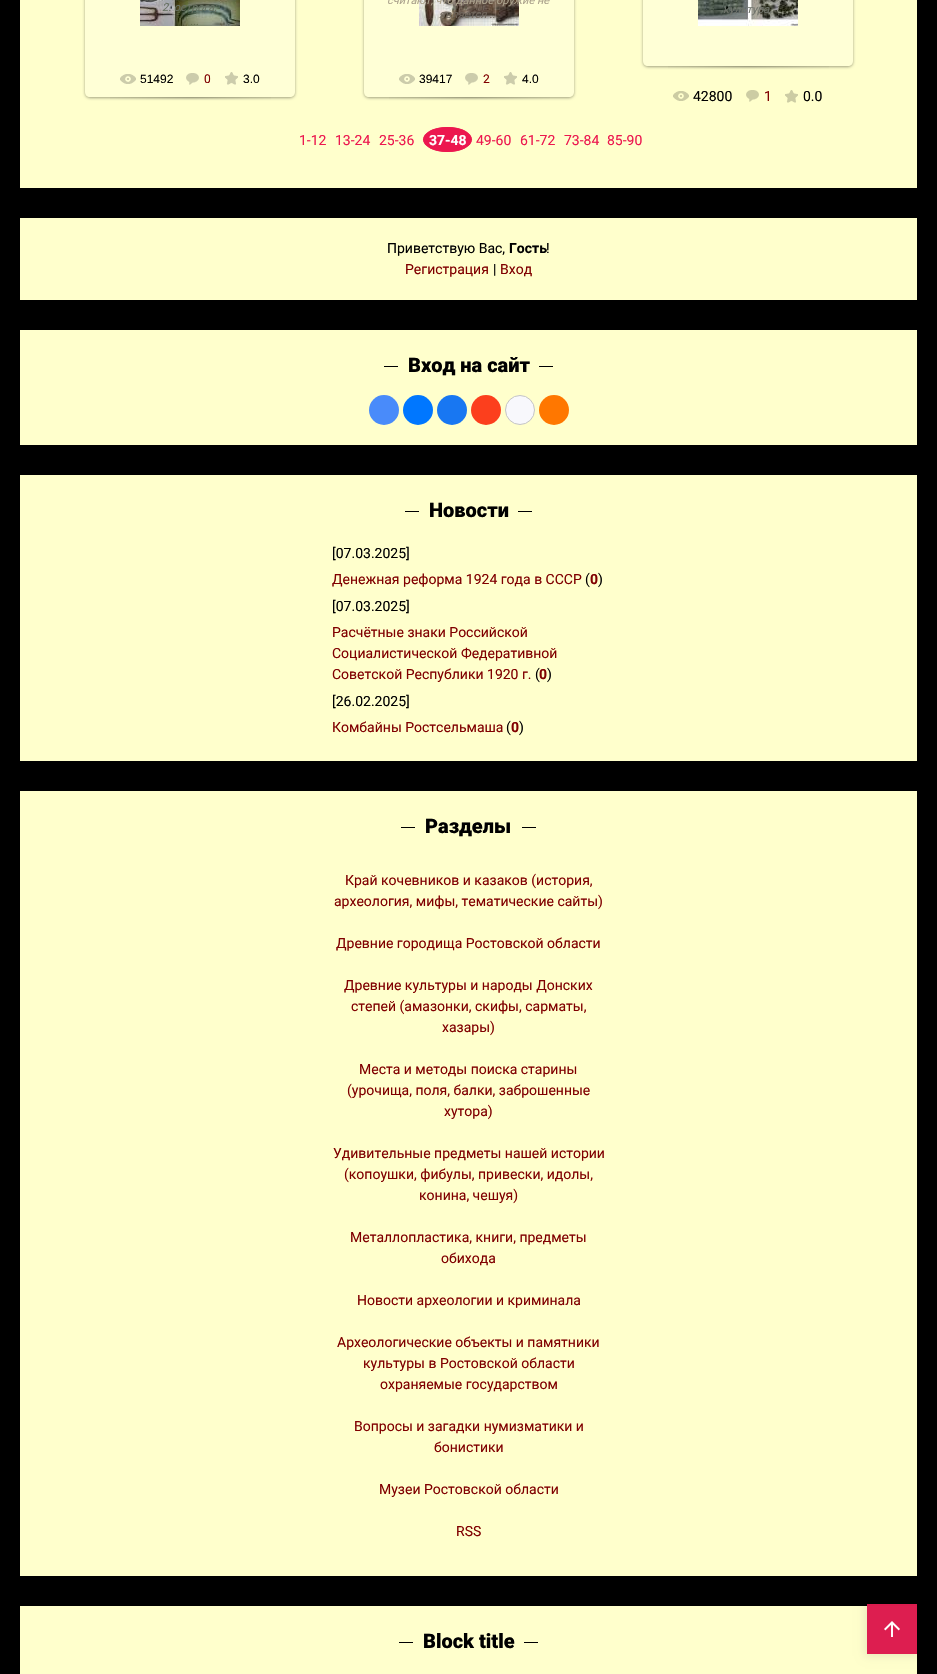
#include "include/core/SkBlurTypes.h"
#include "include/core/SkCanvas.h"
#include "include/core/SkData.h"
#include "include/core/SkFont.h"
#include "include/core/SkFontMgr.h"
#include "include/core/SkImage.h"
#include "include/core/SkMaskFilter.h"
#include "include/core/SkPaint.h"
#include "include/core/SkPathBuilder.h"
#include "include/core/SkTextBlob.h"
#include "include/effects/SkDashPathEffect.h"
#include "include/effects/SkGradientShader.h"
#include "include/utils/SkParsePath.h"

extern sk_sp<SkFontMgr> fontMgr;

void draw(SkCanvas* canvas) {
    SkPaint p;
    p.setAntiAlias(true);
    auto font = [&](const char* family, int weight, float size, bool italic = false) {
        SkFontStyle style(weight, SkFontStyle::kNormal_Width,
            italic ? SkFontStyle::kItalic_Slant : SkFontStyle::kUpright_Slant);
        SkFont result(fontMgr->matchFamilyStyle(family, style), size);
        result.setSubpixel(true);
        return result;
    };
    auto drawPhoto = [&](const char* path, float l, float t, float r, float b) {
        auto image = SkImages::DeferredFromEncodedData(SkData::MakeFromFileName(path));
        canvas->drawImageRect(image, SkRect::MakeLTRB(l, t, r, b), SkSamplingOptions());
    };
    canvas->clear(0xFF000000);
    p.setColor(0xFFDB1C4E);
    canvas->drawRect(SkRect::MakeLTRB(867, 1604, 917, 1606), p);
    p.setColor(0xFFFFFFCC);
    canvas->drawRect(SkRect::MakeLTRB(20, 0, 917, 188), p);
    canvas->save();
    canvas->clipPath(SkPathBuilder(SkPathFillType::kEvenOdd).moveTo(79, 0).lineTo(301, 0).lineTo(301, 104).lineTo(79, 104).close().moveTo(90, -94).lineTo(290, -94).cubicTo(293, -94, 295, -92, 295, -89).lineTo(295, 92).cubicTo(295, 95, 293, 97, 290, 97).lineTo(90, 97).cubicTo(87, 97, 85, 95, 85, 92).lineTo(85, -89).cubicTo(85, -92, 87, -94, 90, -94).close().detach(), true);
    p.setColor(0x5E000000);
    p.setMaskFilter(SkMaskFilter::MakeBlur(kNormal_SkBlurStyle, 1.5f));
    canvas->drawRoundRect(SkRect::MakeLTRB(85, -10, 295, 98), 5, 5, p);
    p.setMaskFilter(nullptr);
    canvas->restore();
    drawPhoto("media/1.png", 85, 0, 295, 97);
    drawPhoto("media/2.png", 140, 0, 240, 26);
    auto font1 = font("Roboto", 400, 11, true);
    p.setColor(0xFF677161);
    canvas->drawString("2. острога;", 162, 11, font1, p);
    p.setColor(0xFF6A7051);
    canvas->drawString("...", 190, 25, font1, p);
    drawPhoto("media/3.png", 120, 74, 136, 84);
    auto font2 = font("Liberation Sans", 400, 12);
    p.setColor(0xFF000000);
    canvas->drawString("51492", 140, 83, font2, p);
    drawPhoto("media/4.png", 186, 73, 199, 85);
    auto font3 = font("Roboto", 400, 12);
    p.setColor(0xFF800000);
    canvas->drawString("0", 204, 83, font3, p);
    drawPhoto("media/5.png", 225, 72, 238, 85);
    p.setColor(0xFF000000);
    canvas->drawString("3.0", 243, 83, font2, p);
    drawPhoto("media/6.png", 110, 97, 271, 100);
    canvas->save();
    canvas->clipPath(SkPathBuilder(SkPathFillType::kEvenOdd).moveTo(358, 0).lineTo(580, 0).lineTo(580, 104).lineTo(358, 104).close().moveTo(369, -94).lineTo(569, -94).cubicTo(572, -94, 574, -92, 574, -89).lineTo(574, 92).cubicTo(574, 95, 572, 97, 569, 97).lineTo(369, 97).cubicTo(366, 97, 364, 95, 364, 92).lineTo(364, -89).cubicTo(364, -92, 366, -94, 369, -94).close().detach(), true);
    p.setColor(0x5E000000);
    p.setMaskFilter(SkMaskFilter::MakeBlur(kNormal_SkBlurStyle, 1.5f));
    canvas->drawRoundRect(SkRect::MakeLTRB(364, -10, 574, 98), 5, 5, p);
    p.setMaskFilter(nullptr);
    canvas->restore();
    drawPhoto("media/1.png", 364, 0, 574, 97);
    drawPhoto("media/7.png", 419, 0, 519, 26);
    p.setColor(0xFFACA38D);
    canvas->drawString("считают, что данное оружие не", 387, 4, font1, p);
    p.setColor(0xFF70675D);
    canvas->drawString("является ...", 439, 18, font1, p);
    drawPhoto("media/3.png", 399, 74, 415, 84);
    p.setColor(0xFF000000);
    canvas->drawString("39417", 419, 83, font2, p);
    drawPhoto("media/4.png", 465, 73, 478, 85);
    p.setColor(0xFF800000);
    canvas->drawString("2", 483, 83, font3, p);
    drawPhoto("media/5.png", 504, 72, 517, 85);
    p.setColor(0xFF000000);
    canvas->drawString("4.0", 522, 83, font2, p);
    drawPhoto("media/6.png", 389, 97, 550, 100);
    canvas->save();
    canvas->clipPath(SkPathBuilder(SkPathFillType::kEvenOdd).moveTo(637, 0).lineTo(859, 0).lineTo(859, 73).lineTo(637, 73).close().moveTo(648, -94).lineTo(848, -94).cubicTo(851, -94, 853, -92, 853, -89).lineTo(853, 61).cubicTo(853, 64, 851, 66, 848, 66).lineTo(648, 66).cubicTo(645, 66, 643, 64, 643, 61).lineTo(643, -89).cubicTo(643, -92, 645, -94, 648, -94).close().detach(), true);
    p.setColor(0x5E000000);
    p.setMaskFilter(SkMaskFilter::MakeBlur(kNormal_SkBlurStyle, 1.5f));
    canvas->drawRoundRect(SkRect::MakeLTRB(643, -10, 853, 67), 5, 5, p);
    p.setMaskFilter(nullptr);
    canvas->restore();
    drawPhoto("media/8.png", 643, 0, 853, 66);
    drawPhoto("media/9.png", 698, 0, 798, 26);
    p.setColor(0xFF6F736B);
    canvas->drawString("культура.", 723, 13, font1, p);
    drawPhoto("media/6.png", 668, 66, 829, 69);
    drawPhoto("media/10.png", 673, 91, 689, 101);
    auto font4 = font("Roboto", 400, 14);
    p.setColor(0xFF000000);
    canvas->drawString("42800", 693, 101, font4, p);
    drawPhoto("media/11.png", 746, 90, 759, 102);
    p.setColor(0xFF800000);
    canvas->drawString("1", 764, 101, font4, p);
    drawPhoto("media/12.png", 785, 90, 798, 103);
    p.setColor(0xFF000000);
    canvas->drawString("0.0", 803, 101, font4, p);
    p.setColor(0xFFEC174F);
    {
        const struct { const char* s; float x, y; } items[] = {
            {"1-12", 299, 145},
            {"13-24", 335, 145},
            {"25-36", 379, 145},
        };
        for (auto [s, x, y] : items) {
            canvas->drawString(s, x, y, font4, p);
        }
    }
    canvas->drawOval(SkRect::MakeLTRB(423, 127, 472, 152), p);
    p.setStyle(SkPaint::kStroke_Style);
    p.setStrokeWidth(1);
    canvas->drawPath(SkPathBuilder().moveTo(447.5f, 127.5f).cubicTo(479, 127.5f, 479, 151.5f, 447.5f, 151.5f).cubicTo(416, 151.5f, 416, 127.5f, 447.5f, 127.5f).close().detach(), p);
    auto font5 = font("Roboto", 700, 14);
    p.setStyle(SkPaint::kFill_Style);
    p.setColor(0xFFFFFFFF);
    canvas->drawString("37-48", 429, 145, font5, p);
    p.setColor(0xFFEC174F);
    {
        const struct { const char* s; float x, y; } items[] = {
            {"49-60", 476, 145},
            {"61-72", 520, 145},
            {"73-84", 564, 145},
            {"85-90", 607, 145},
        };
        for (auto [s, x, y] : items) {
            canvas->drawString(s, x, y, font4, p);
        }
    }
    p.setColor(0xFFFFFFCC);
    canvas->drawRect(SkRect::MakeLTRB(20, 218, 917, 300), p);
    p.setColor(0xFF000000);
    canvas->drawString("Приветствую Вас,", 387, 253, font4, p);
    canvas->drawString("Гость", 509, 253, font5, p);
    canvas->drawString("!", 546, 253, font4, p);
    p.setColor(0xFF800000);
    canvas->drawString("Регистрация", 405, 274, font4, p);
    p.setColor(0xFF000000);
    canvas->drawString("|", 493, 274, font4, p);
    p.setColor(0xFF800000);
    canvas->drawString("Вход", 500, 274, font4, p);
    p.setColor(0xFFFFFFCC);
    canvas->drawRect(SkRect::MakeLTRB(20, 330, 917, 445), p);
    p.setColor(0xFF000000);
    canvas->drawRect(SkRect::MakeLTRB(384, 366, 398, 367), p);
    auto font6 = font("Roboto", 900, 20);
    canvas->drawString("Вход на сайт", 408, 372, font6, p);
    canvas->drawRect(SkRect::MakeLTRB(539, 366, 553, 367), p);
    p.setColor(0xFF498BFA);
    canvas->drawCircle(384, 410, 15, p);
    p.setColor(0xFF0077FF);
    canvas->drawCircle(418, 410, 15, p);
    p.setColor(0xFF1877F2);
    canvas->drawCircle(452, 410, 15, p);
    p.setColor(0xFFFC3F1D);
    canvas->drawCircle(486, 410, 15, p);
    p.setColor(0xFFF8F8FC);
    canvas->drawCircle(520, 410, 14.5f, p);
    p.setStyle(SkPaint::kStroke_Style);
    p.setColor(0xFFC4C4C4);
    canvas->drawCircle(520, 410, 14.5f, p);
    p.setStyle(SkPaint::kFill_Style);
    p.setColor(0xFFFF7700);
    canvas->drawCircle(554, 410, 15, p);
    p.setColor(0xFFFFFFCC);
    canvas->drawRect(SkRect::MakeLTRB(20, 475, 917, 761), p);
    p.setColor(0xFF000000);
    canvas->drawRect(SkRect::MakeLTRB(405, 511, 419, 512), p);
    canvas->drawString("Новости", 429, 517, font6, p);
    canvas->drawRect(SkRect::MakeLTRB(518, 511, 532, 512), p);
    canvas->drawString("[07.03.2025]", 332, 558, font4, p);
    p.setColor(0xFF800000);
    canvas->drawString("Денежная реформа 1924 года в СССР", 332, 584, font4, p);
    p.setColor(0xFF000000);
    canvas->drawString("(", 585, 584, font4, p);
    p.setColor(0xFF800000);
    canvas->drawString("0", 590, 584, font5, p);
    p.setColor(0xFF000000);
    canvas->drawString(")", 598, 584, font4, p);
    canvas->drawString("[07.03.2025]", 332, 611, font4, p);
    p.setColor(0xFF800000);
    {
        const struct { const char* s; float x, y; } items[] = {
            {"Расчётные знаки Российской", 332, 637},
            {"Социалистической Федеративной", 332, 658},
            {"Советской Республики 1920 г.", 332, 679},
        };
        for (auto [s, x, y] : items) {
            canvas->drawString(s, x, y, font4, p);
        }
    }
    p.setColor(0xFF000000);
    canvas->drawString("(", 535, 679, font4, p);
    p.setColor(0xFF800000);
    canvas->drawString("0", 539, 679, font5, p);
    p.setColor(0xFF000000);
    canvas->drawString(")", 547, 679, font4, p);
    canvas->drawString("[26.02.2025]", 332, 706, font4, p);
    p.setColor(0xFF800000);
    canvas->drawString("Комбайны Ростсельмаша", 332, 732, font4, p);
    p.setColor(0xFF000000);
    canvas->drawString("(", 506, 732, font4, p);
    p.setColor(0xFF800000);
    canvas->drawString("0", 511, 732, font5, p);
    p.setColor(0xFF000000);
    canvas->drawString(")", 519, 732, font4, p);
    p.setColor(0xFFFFFFCC);
    canvas->drawRect(SkRect::MakeLTRB(20, 791, 917, 1576), p);
    p.setColor(0xFF000000);
    canvas->drawRect(SkRect::MakeLTRB(401, 827, 415, 828), p);
    canvas->drawString("Разделы", 425, 833, font6, p);
    canvas->drawRect(SkRect::MakeLTRB(522, 827, 536, 828), p);
    p.setColor(0xFF800000);
    {
        const struct { const char* s; float x, y; } items[] = {
            {"Край кочевников и казаков (история,", 345, 885},
            {"археология, мифы, тематические сайты)", 334, 906},
            {"Древние городища Ростовской области", 336, 948},
            {"Древние культуры и народы Донских", 344, 990},
            {"степей (амазонки, скифы, сарматы,", 351, 1011},
            {"хазары)", 442, 1032},
            {"Места и методы поиска старины", 359, 1074},
            {"(урочища, поля, балки, заброшенные", 347, 1095},
            {"хутора)", 444, 1116},
            {"Удивительные предметы нашей истории", 333, 1158},
            {"(копоушки, фибулы, привески, идолы,", 344, 1179},
            {"конина, чешуя)", 419, 1200},
            {"Металлопластика, книги, предметы", 350, 1242},
            {"обихода", 441, 1263},
            {"Новости археологии и криминала", 357, 1305},
            {"Археологические объекты и памятники", 337, 1347},
            {"культуры в Ростовской области", 363, 1368},
            {"охраняемые государством", 380, 1389},
            {"Вопросы и загадки нумизматики и", 354, 1431},
            {"бонистики", 434, 1452},
            {"Музеи Ростовской области", 379, 1494},
            {"RSS", 456, 1536},
        };
        for (auto [s, x, y] : items) {
            canvas->drawString(s, x, y, font4, p);
        }
    }
    {
        const struct { float l, t, r, b; SkColor color; } items[] = {
            {20, 1606, 917, 1674, 0xFFFFFFCC},
            {867, 1606, 917, 1654, 0xFFDD1E50},
            {399, 1642, 413, 1643, 0xFF000000},
        };
        for (auto [l, t, r, b, color] : items) {
            p.setColor(color);
            canvas->drawRect(SkRect::MakeLTRB(l, t, r, b), p);
        }
    }
    canvas->drawString("Block title", 423, 1648, font6, p);
    canvas->drawRect(SkRect::MakeLTRB(524, 1642, 538, 1643), p);
    canvas->save();
    canvas->clipPath(SkPathBuilder(SkPathFillType::kEvenOdd).moveTo(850, 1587).lineTo(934, 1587).lineTo(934, 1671).lineTo(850, 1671).close().moveTo(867, 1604).lineTo(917, 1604).lineTo(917, 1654).lineTo(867, 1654).close().detach(), true);
    p.setColor(0x17000000);
    p.setMaskFilter(SkMaskFilter::MakeBlur(kNormal_SkBlurStyle, 4.5f));
    canvas->drawRect(SkRect::MakeLTRB(865, 1602, 919, 1656), p);
    p.setMaskFilter(nullptr);
    canvas->restore();
    drawPhoto("media/13.png", 884, 1621, 900, 1637);
}
